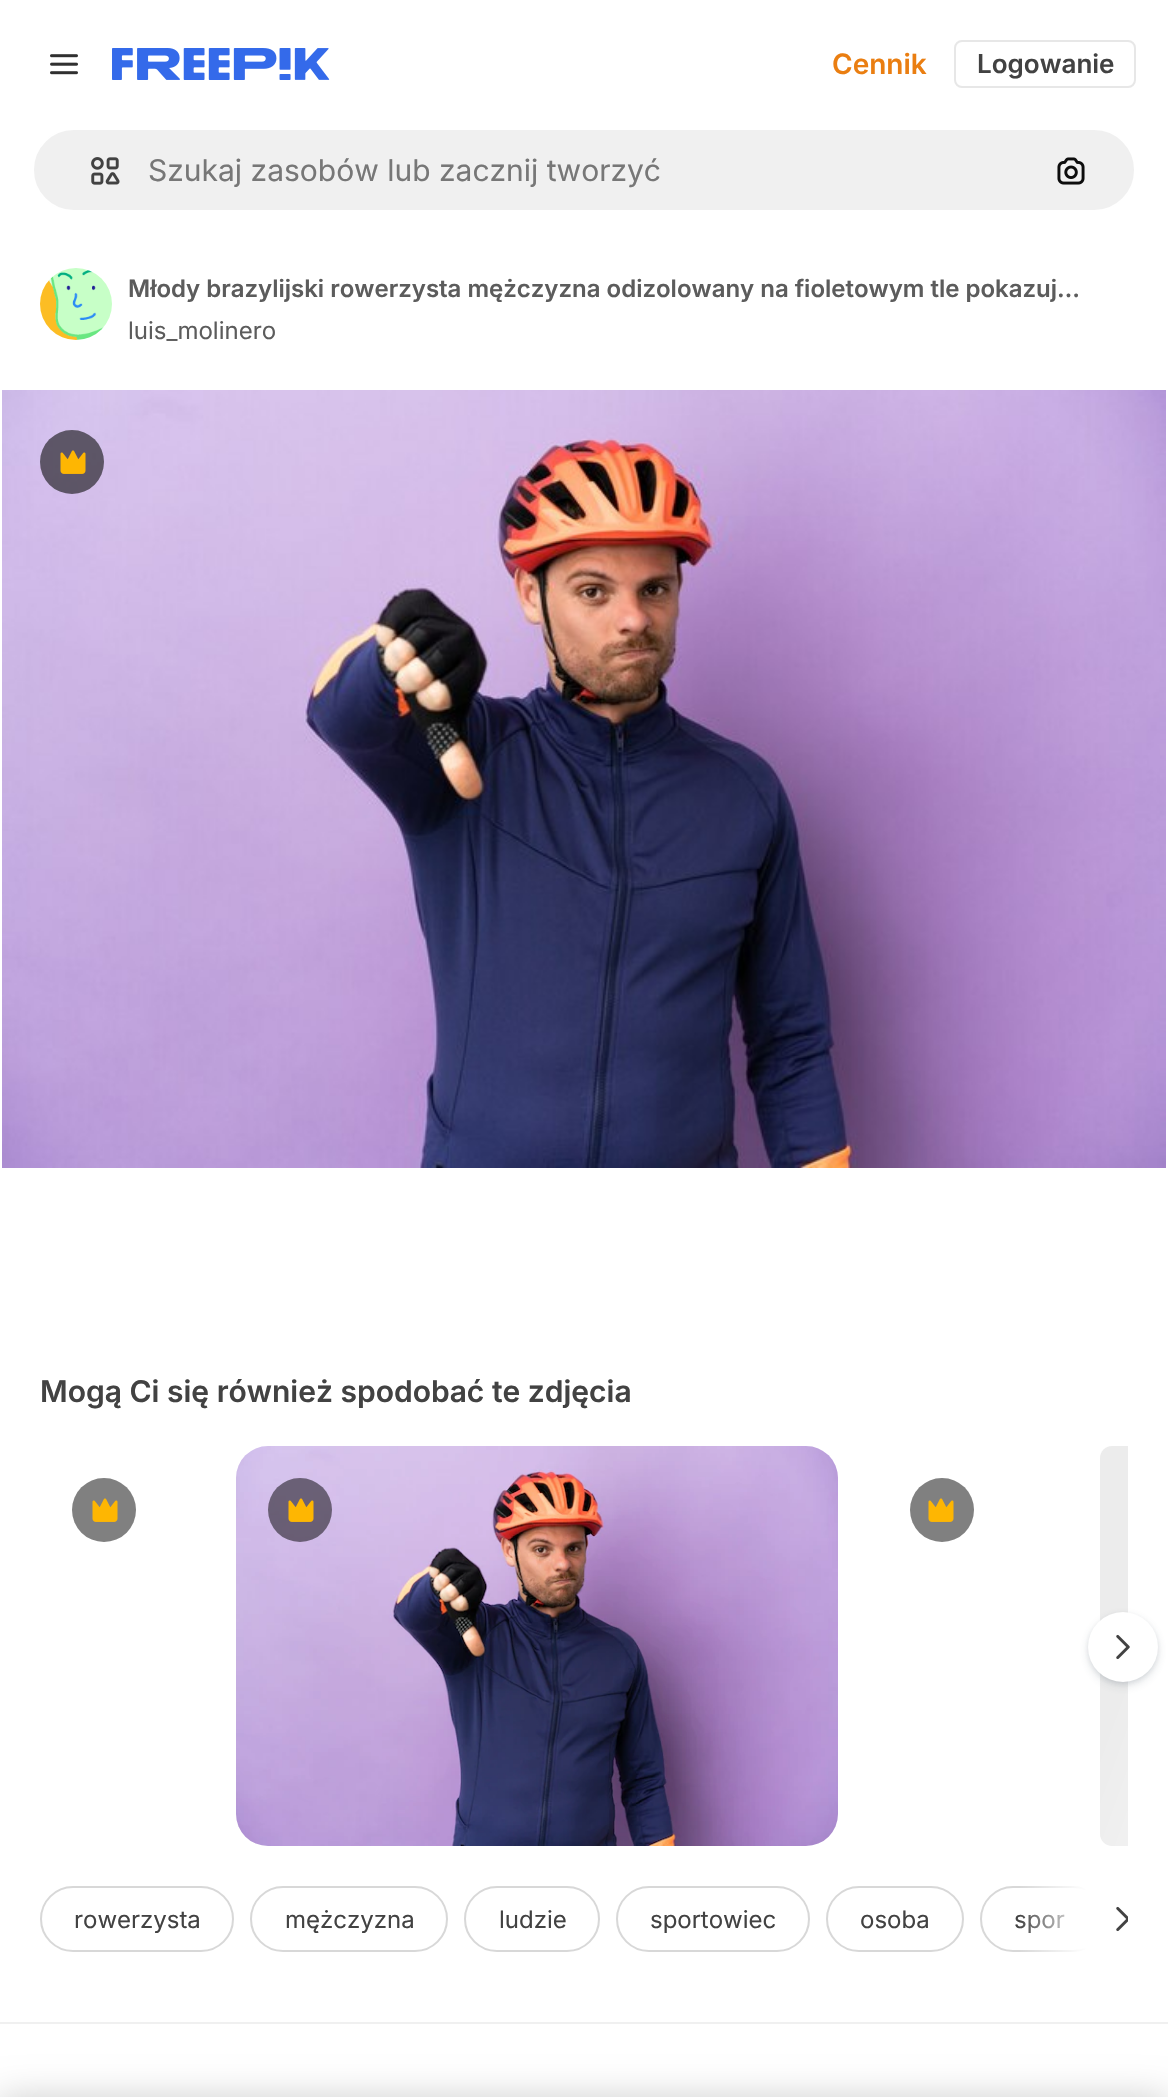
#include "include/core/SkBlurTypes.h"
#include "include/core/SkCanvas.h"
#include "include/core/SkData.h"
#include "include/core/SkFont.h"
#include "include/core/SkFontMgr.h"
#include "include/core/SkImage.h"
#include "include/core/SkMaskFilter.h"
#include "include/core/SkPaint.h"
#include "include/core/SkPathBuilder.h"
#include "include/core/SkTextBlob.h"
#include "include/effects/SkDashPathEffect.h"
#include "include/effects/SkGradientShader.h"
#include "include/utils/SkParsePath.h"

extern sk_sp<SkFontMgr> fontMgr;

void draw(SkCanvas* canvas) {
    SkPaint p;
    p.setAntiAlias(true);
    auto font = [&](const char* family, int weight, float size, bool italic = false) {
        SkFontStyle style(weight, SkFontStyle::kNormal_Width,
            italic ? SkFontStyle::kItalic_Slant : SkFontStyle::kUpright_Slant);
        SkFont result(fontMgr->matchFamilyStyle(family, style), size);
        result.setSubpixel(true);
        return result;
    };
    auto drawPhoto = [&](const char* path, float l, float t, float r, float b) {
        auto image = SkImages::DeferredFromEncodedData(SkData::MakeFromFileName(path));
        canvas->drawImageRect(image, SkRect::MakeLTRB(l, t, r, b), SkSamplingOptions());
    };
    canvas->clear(0xFFFFFFFF);
    drawPhoto("media/1.png", 50, 54, 78, 75);
    drawPhoto("media/2.png", 112, 48, 330, 80);
    auto font1 = font("Inter", 600, 28);
    p.setColor(0xFFEA7E11);
    canvas->drawString("Cennik", 832, 74, font1, p);
    p.setStyle(SkPaint::kStroke_Style);
    p.setStrokeWidth(2);
    p.setColor(0xFFE7E7E7);
    canvas->drawRoundRect(SkRect::MakeLTRB(955, 41, 1135, 87), 7, 7, p);
    auto font2 = font("Inter", 600, 26);
    p.setStyle(SkPaint::kFill_Style);
    p.setColor(0xFF424242);
    canvas->drawString("Logowanie", 977, 73, font2, p);
    p.setColor(0xFFF0F0F0);
    canvas->drawRoundRect(SkRect::MakeLTRB(33, 129, 1135, 211), 41, 41, p);
    p.setStyle(SkPaint::kStroke_Style);
    p.setColor(0xFFFFFFFF);
    canvas->drawRoundRect(SkRect::MakeLTRB(33, 129, 1135, 211), 41, 41, p);
    drawPhoto("media/3.png", 91, 157, 120, 185);
    auto font3 = font("Inter", 400, 30);
    p.setStyle(SkPaint::kFill_Style);
    p.setColor(0xFF777777);
    canvas->drawString("Szukaj zasobów lub zacznij tworzyć", 148, 181, font3, p);
    drawPhoto("media/4.png", 1057, 157, 1085, 185);
    drawPhoto("media/5.png", 40, 268, 112, 340);
    auto font4 = font("Inter", 600, 24);
    p.setColor(0xFF5C5C5C);
    canvas->drawString("Młody brazylijski rowerzysta mężczyzna odizolowany na fioletowym tle pokazuj…", 128, 297, font4, p);
    auto font5 = font("Inter", 400, 24);
    canvas->drawString("luis_molinero", 128, 339, font5, p);
    drawPhoto("media/6.png", 2, 390, 1166, 1168);
    p.setColor(0x990D0D0D);
    canvas->drawCircle(72, 462, 32, p);
    drawPhoto("media/7.png", 60, 450, 86, 474);
    auto font6 = font("Inter", 600, 30);
    p.setColor(0xFF424242);
    canvas->drawString("Mogą Ci się również spodobać te zdjęcia", 40, 1402, font6, p);
    p.setColor(0xFF808080);
    canvas->drawCircle(104, 1510, 32, p);
    drawPhoto("media/8.png", 92, 1498, 118, 1522);
    drawPhoto("media/9.png", 236, 1446, 838, 1846);
    p.setColor(0x80000000);
    canvas->drawCircle(300, 1510, 32, p);
    drawPhoto("media/10.png", 288, 1498, 314, 1522);
    p.setColor(0xFF808080);
    canvas->drawCircle(942, 1510, 32, p);
    drawPhoto("media/8.png", 928, 1498, 954, 1522);
    {
        const SkColor colors[] = {0xFFECECEC, 0xFFF5F5F5, 0xFFECECEC};
        const float stops[] = {0.08f, 0.18f, 0.33f};
        const SkPoint ends[] = {{1106, 1430}, {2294, 1862}};
        p.setShader(SkGradientShader::MakeLinear(ends, colors, stops, 3, SkTileMode::kClamp));
        p.setAlpha(255);
    }
    canvas->drawPath(SkPathBuilder().moveTo(1112, 1446).lineTo(1128, 1446).lineTo(1128, 1846).lineTo(1112, 1846).cubicTo(1105.5f, 1846, 1100, 1840.5f, 1100, 1834).lineTo(1100, 1458).cubicTo(1100, 1451.5f, 1105.5f, 1446, 1112, 1446).close().detach(), p);
    p.setShader(nullptr);
    p.setColor(0x26374957);
    p.setMaskFilter(SkMaskFilter::MakeBlur(kNormal_SkBlurStyle, 5));
    canvas->drawRoundRect(SkRect::MakeLTRB(1088, 1616, 1158, 1686), 35, 35, p);
    p.setMaskFilter(nullptr);
    p.setColor(0x1A374957);
    p.setMaskFilter(SkMaskFilter::MakeBlur(kNormal_SkBlurStyle, 2));
    canvas->drawRoundRect(SkRect::MakeLTRB(1088, 1614, 1158, 1684), 35, 35, p);
    p.setMaskFilter(nullptr);
    p.setColor(0xFFFFFFFF);
    canvas->drawCircle(1123, 1647, 35, p);
    drawPhoto("media/11.png", 1116, 1634, 1130, 1660);
    p.setStyle(SkPaint::kStroke_Style);
    p.setColor(0xFFD8D8D8);
    canvas->drawRoundRect(SkRect::MakeLTRB(41, 1887, 233, 1951), 32, 32, p);
    p.setStyle(SkPaint::kFill_Style);
    p.setColor(0xFF424242);
    canvas->drawString("rowerzysta", 74, 1928, font5, p);
    p.setStyle(SkPaint::kStroke_Style);
    p.setColor(0xFFD8D8D8);
    canvas->drawRoundRect(SkRect::MakeLTRB(251, 1887, 447, 1951), 32, 32, p);
    p.setStyle(SkPaint::kFill_Style);
    p.setColor(0xFF424242);
    canvas->drawString("mężczyzna", 285, 1928, font5, p);
    p.setStyle(SkPaint::kStroke_Style);
    p.setColor(0xFFD8D8D8);
    canvas->drawRoundRect(SkRect::MakeLTRB(465, 1887, 599, 1951), 32, 32, p);
    p.setStyle(SkPaint::kFill_Style);
    p.setColor(0xFF424242);
    canvas->drawString("ludzie", 499, 1928, font5, p);
    p.setStyle(SkPaint::kStroke_Style);
    p.setColor(0xFFD8D8D8);
    canvas->drawRoundRect(SkRect::MakeLTRB(617, 1887, 809, 1951), 32, 32, p);
    p.setStyle(SkPaint::kFill_Style);
    p.setColor(0xFF424242);
    canvas->drawString("sportowiec", 650, 1928, font5, p);
    p.setStyle(SkPaint::kStroke_Style);
    p.setColor(0xFFD8D8D8);
    canvas->drawRoundRect(SkRect::MakeLTRB(827, 1887, 963, 1951), 32, 32, p);
    p.setStyle(SkPaint::kFill_Style);
    p.setColor(0xFF424242);
    canvas->drawString("osoba", 860, 1928, font5, p);
    p.setStyle(SkPaint::kStroke_Style);
    p.setColor(0xFFD8D8D8);
    canvas->drawRoundRect(SkRect::MakeLTRB(981, 1887, 1105, 1951), 32, 32, p);
    p.setStyle(SkPaint::kFill_Style);
    p.setColor(0xFF424242);
    canvas->drawString("spor", 1014, 1928, font5, p);
    p.setColor(0xFFFFFFFF);
    canvas->drawRect(SkRect::MakeLTRB(1088, 1889, 1106, 1949), p);
    {
        const SkColor colors[] = {0xFFFFFFFF, 0x00FFFFFF};
        const float stops[] = {0, 1};
        const SkPoint ends[] = {{1088, 1919}, {1018, 1919}};
        p.setShader(SkGradientShader::MakeLinear(ends, colors, stops, 2, SkTileMode::kClamp));
        p.setAlpha(255);
    }
    canvas->drawRect(SkRect::MakeLTRB(1020, 1886, 1088, 1952), p);
    drawPhoto("media/12.png", 1116, 1906, 1128, 1932);
    p.setShader(nullptr);
    p.setColor(0xFFF0F0F0);
    canvas->drawRect(SkRect::MakeLTRB(0, 2022, 1168, 2024), p);
    p.setColor(0x33000000);
    p.setMaskFilter(SkMaskFilter::MakeBlur(kNormal_SkBlurStyle, 18));
    canvas->drawRect(SkRect::MakeLTRB(0, 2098, 1168, 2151), p);
    p.setMaskFilter(nullptr);
}
